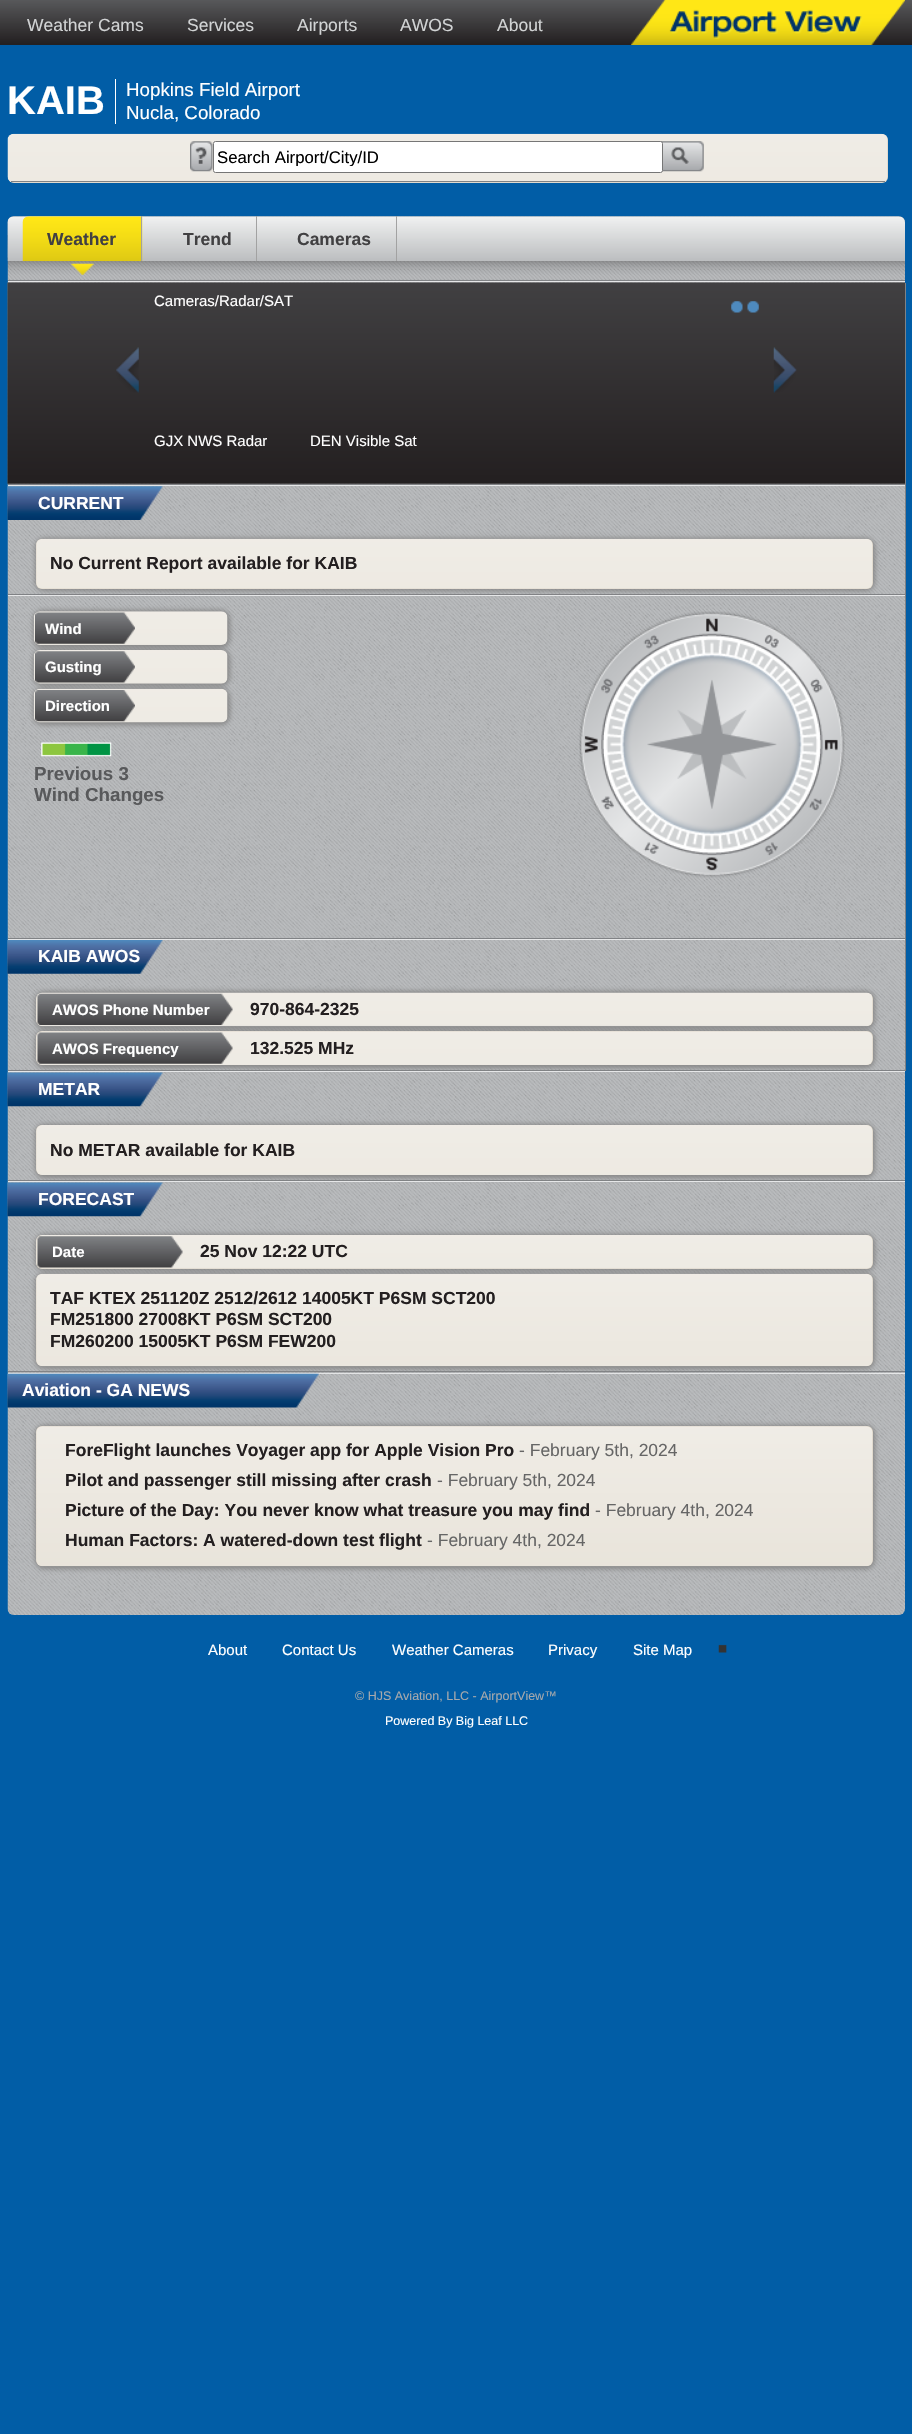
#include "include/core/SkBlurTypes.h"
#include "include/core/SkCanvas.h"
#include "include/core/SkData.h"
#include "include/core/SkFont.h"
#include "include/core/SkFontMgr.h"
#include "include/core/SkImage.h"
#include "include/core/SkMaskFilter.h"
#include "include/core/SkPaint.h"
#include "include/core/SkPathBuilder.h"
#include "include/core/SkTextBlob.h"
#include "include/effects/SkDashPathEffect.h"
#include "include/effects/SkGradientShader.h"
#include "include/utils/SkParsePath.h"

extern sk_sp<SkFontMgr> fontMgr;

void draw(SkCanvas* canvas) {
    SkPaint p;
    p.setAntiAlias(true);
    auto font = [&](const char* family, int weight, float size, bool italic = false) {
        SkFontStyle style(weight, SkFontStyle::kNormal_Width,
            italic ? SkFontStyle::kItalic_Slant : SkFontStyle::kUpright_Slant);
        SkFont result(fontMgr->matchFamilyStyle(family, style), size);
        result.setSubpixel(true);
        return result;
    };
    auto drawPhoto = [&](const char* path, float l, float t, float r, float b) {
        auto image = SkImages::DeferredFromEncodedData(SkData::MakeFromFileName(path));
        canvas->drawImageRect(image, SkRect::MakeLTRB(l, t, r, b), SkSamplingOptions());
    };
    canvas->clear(0xFF015DA6);
    drawPhoto("media/1.png", 0, 0, 912, 45);
    auto font1 = font("Liberation Sans", 400, 17.5f);
    p.setColor(0xFFD1D3D4);
    {
        const struct { const char* s; float x, y; } items[] = {
            {"Weather Cams", 27, 31},
            {"Services", 187, 31},
            {"Airports", 297, 31},
            {"AWOS", 400, 31},
            {"About", 497, 31},
        };
        for (auto [s, x, y] : items) {
            canvas->drawString(s, x, y, font1, p);
        }
    }
    drawPhoto("media/2.png", 631, 0, 905, 45);
    auto font2 = font("Liberation Sans", 700, 40);
    p.setColor(0xFFFFFFFF);
    canvas->drawString("KAIB", 7, 114, font2, p);
    canvas->drawRect(SkRect::MakeLTRB(115, 79, 116, 124), p);
    auto font3 = font("Liberation Sans", 400, 18.75f);
    canvas->drawString("Hopkins Field Airport", 126, 96, font3, p);
    canvas->drawString("Nucla, Colorado", 126, 119, font3, p);
    p.setColor(0xFFDED6C8);
    canvas->drawRoundRect(SkRect::MakeLTRB(8, 134, 888, 183), 6, 6, p);
    drawPhoto("media/3.png", 7, 133, 888, 183);
    p.setColor(0xFF808285);
    canvas->drawRect(SkRect::MakeLTRB(11, 181, 885, 182), p);
    drawPhoto("media/4.png", 190, 141, 213, 172);
    drawPhoto("media/5.png", 660, 141, 704, 172);
    p.setColor(0xFFFFFFFF);
    canvas->drawRoundRect(SkRect::MakeLTRB(213.5f, 141.5f, 662.5f, 172.5f), 2, 2, p);
    p.setStyle(SkPaint::kStroke_Style);
    p.setStrokeWidth(1);
    p.setColor(0xFF767676);
    canvas->drawRoundRect(SkRect::MakeLTRB(213.5f, 141.5f, 662.5f, 172.5f), 2, 2, p);
    canvas->save();
    canvas->clipRect(SkRect::MakeLTRB(218, 148, 658, 166));
    auto font4 = font("Liberation Sans", 400, 16.75f);
    p.setStyle(SkPaint::kFill_Style);
    p.setColor(0xFF000000);
    canvas->drawString("Search Airport/City/ID", 217, 163, font4, p);
    canvas->restore();
    drawPhoto("media/6.png", 7, 216, 905, 281);
    p.setColor(0xFF808285);
    canvas->drawRect(SkRect::MakeLTRB(8, 280, 905, 281), p);
    drawPhoto("media/7.png", 7, 216, 905, 261);
    drawPhoto("media/8.png", 71, 263, 94, 275);
    drawPhoto("media/9.png", 22, 216, 143, 262);
    p.setColor(0xFFA2A2A2);
    canvas->drawRect(SkRect::MakeLTRB(141, 216, 142, 261), p);
    auto font5 = font("Liberation Sans", 700, 17.5f);
    p.setColor(0xFF414042);
    canvas->drawString("Weather", 47, 245, font5, p);
    p.setColor(0xFFA2A2A2);
    canvas->drawRect(SkRect::MakeLTRB(256, 216, 257, 261), p);
    p.setColor(0xFF414042);
    canvas->drawString("Trend", 183, 245, font5, p);
    p.setColor(0xFFA2A2A2);
    canvas->drawRect(SkRect::MakeLTRB(396, 216, 397, 261), p);
    p.setColor(0xFF414042);
    canvas->drawString("Cameras", 297, 245, font5, p);
    drawPhoto("media/10.png", 7, 281, 905, 1615);
    {
        const struct { float l, t, r, b; SkColor color; } items[] = {
            {8, 281, 905, 282, 0xFFE6E7E8},
            {905, 283, 906, 1071, 0xFF808285},
            {8, 1070, 906, 1071, 0xFF808285},
        };
        for (auto [l, t, r, b, color] : items) {
            p.setColor(color);
            canvas->drawRect(SkRect::MakeLTRB(l, t, r, b), p);
        }
    }
    drawPhoto("media/11.png", 7, 282, 905, 484);
    canvas->drawRect(SkRect::MakeLTRB(8, 484, 905, 485), p);
    auto font6 = font("Liberation Sans", 400, 15);
    p.setColor(0xFFFFFFFF);
    canvas->drawString("Cameras/Radar/SAT", 154, 306, font6, p);
    drawPhoto("media/12.png", 731, 301, 743, 313);
    drawPhoto("media/13.png", 747, 301, 759, 313);
    drawPhoto("media/14.png", 116, 347, 139, 393);
    drawPhoto("media/15.png", 773, 347, 797, 393);
    canvas->drawString("GJX NWS Radar", 154, 446, font6, p);
    canvas->drawString("DEN Visible Sat", 310, 446, font6, p);
    p.setColor(0xFFE6E7E8);
    canvas->drawRect(SkRect::MakeLTRB(8, 485, 905, 486), p);
    p.setColor(0xFF808285);
    canvas->drawRect(SkRect::MakeLTRB(8, 594, 905, 595), p);
    drawPhoto("media/16.png", 7, 486, 163, 520);
    p.setColor(0xFFFFFFFF);
    canvas->drawString("CURRENT", 38, 509, font5, p);
    p.setColor(0xFF888888);
    p.setMaskFilter(SkMaskFilter::MakeBlur(kNormal_SkBlurStyle, 2.5f));
    canvas->drawRoundRect(SkRect::MakeLTRB(35, 538, 875, 591), 9, 9, p);
    p.setMaskFilter(nullptr);
    p.setColor(0xFFDED6C8);
    canvas->drawRoundRect(SkRect::MakeLTRB(36, 539, 873, 589), 6, 6, p);
    drawPhoto("media/17.png", 36, 538, 873, 589);
    p.setColor(0xFF231F20);
    canvas->drawString("No Current Report available for KAIB", 50, 569, font5, p);
    p.setColor(0xFFE6E7E8);
    canvas->drawRect(SkRect::MakeLTRB(8, 595, 905, 596), p);
    p.setColor(0xFF808285);
    canvas->drawRect(SkRect::MakeLTRB(8, 938, 905, 939), p);
    p.setColor(0xFF888888);
    p.setMaskFilter(SkMaskFilter::MakeBlur(kNormal_SkBlurStyle, 2.5f));
    canvas->drawRoundRect(SkRect::MakeLTRB(33, 610, 230, 648), 9, 9, p);
    p.setMaskFilter(nullptr);
    drawPhoto("media/18.png", 33, 611, 228, 645);
    p.setMaskFilter(SkMaskFilter::MakeBlur(kNormal_SkBlurStyle, 2.5f));
    canvas->drawRoundRect(SkRect::MakeLTRB(33, 649, 230, 686), 9, 9, p);
    p.setMaskFilter(nullptr);
    drawPhoto("media/19.png", 35, 612, 135, 644);
    auto font7 = font("Liberation Sans", 700, 15);
    p.setColor(0xFFFFFFFF);
    canvas->drawString("Wind", 45, 634, font7, p);
    drawPhoto("media/20.png", 33, 650, 228, 684);
    p.setColor(0xFF888888);
    p.setMaskFilter(SkMaskFilter::MakeBlur(kNormal_SkBlurStyle, 2.5f));
    canvas->drawRoundRect(SkRect::MakeLTRB(33, 688, 230, 725), 9, 9, p);
    p.setMaskFilter(nullptr);
    drawPhoto("media/21.png", 35, 651, 135, 683);
    p.setColor(0xFFFFFFFF);
    canvas->drawString("Gusting", 45, 672, font7, p);
    drawPhoto("media/22.png", 33, 688, 228, 723);
    drawPhoto("media/23.png", 35, 690, 135, 722);
    canvas->drawString("Direction", 45, 711, font7, p);
    drawPhoto("media/24.png", 41, 742, 112, 757);
    auto font8 = font("Liberation Sans", 700, 18.75f);
    p.setColor(0xFF58595B);
    canvas->drawString("Previous 3", 34, 780, font8, p);
    canvas->drawString("Wind Changes", 34, 801, font8, p);
    drawPhoto("media/25.png", 579, 611, 845, 878);
    p.setColor(0xFFE6E7E8);
    canvas->drawRect(SkRect::MakeLTRB(8, 939, 905, 940), p);
    drawPhoto("media/26.png", 7, 940, 163, 974);
    p.setColor(0xFFFFFFFF);
    canvas->drawString("KAIB AWOS", 38, 962, font5, p);
    p.setColor(0xFF888888);
    p.setMaskFilter(SkMaskFilter::MakeBlur(kNormal_SkBlurStyle, 2.5f));
    canvas->drawRoundRect(SkRect::MakeLTRB(35, 991, 875, 1029), 9, 9, p);
    p.setMaskFilter(nullptr);
    p.setColor(0xFFDED6C8);
    canvas->drawRoundRect(SkRect::MakeLTRB(36, 993, 873, 1026), 6, 6, p);
    drawPhoto("media/27.png", 36, 992, 873, 1027);
    p.setColor(0xFF888888);
    p.setMaskFilter(SkMaskFilter::MakeBlur(kNormal_SkBlurStyle, 2.5f));
    canvas->drawRoundRect(SkRect::MakeLTRB(35, 1030, 875, 1068), 9, 9, p);
    p.setMaskFilter(nullptr);
    drawPhoto("media/28.png", 37, 993, 233, 1025);
    p.setColor(0xFFFFFFFF);
    canvas->drawString("AWOS Phone Number", 52, 1015, font7, p);
    p.setColor(0xFF231F20);
    canvas->drawString("970-864-2325", 250, 1015, font5, p);
    p.setColor(0xFFDED6C8);
    canvas->drawRoundRect(SkRect::MakeLTRB(36, 1031, 873, 1065), 6, 6, p);
    drawPhoto("media/29.png", 36, 1031, 873, 1065);
    drawPhoto("media/30.png", 37, 1032, 233, 1064);
    p.setColor(0xFFFFFFFF);
    canvas->drawString("AWOS Frequency", 52, 1054, font7, p);
    p.setColor(0xFF231F20);
    canvas->drawString("132.525 MHz", 250, 1054, font5, p);
    {
        const struct { float l, t, r, b; SkColor color; } items[] = {
            {8, 1071, 905, 1072, 0xFFE6E7E8},
            {8, 1371, 905, 1372, 0xFF808285},
            {8, 1180, 905, 1181, 0xFF808285},
        };
        for (auto [l, t, r, b, color] : items) {
            p.setColor(color);
            canvas->drawRect(SkRect::MakeLTRB(l, t, r, b), p);
        }
    }
    drawPhoto("media/31.png", 7, 1072, 163, 1107);
    p.setColor(0xFFFFFFFF);
    canvas->drawString("METAR", 38, 1095, font5, p);
    p.setColor(0xFF888888);
    p.setMaskFilter(SkMaskFilter::MakeBlur(kNormal_SkBlurStyle, 2.5f));
    canvas->drawRoundRect(SkRect::MakeLTRB(35, 1124, 875, 1178), 9, 9, p);
    p.setMaskFilter(nullptr);
    p.setColor(0xFFDED6C8);
    canvas->drawRoundRect(SkRect::MakeLTRB(36, 1125, 873, 1175), 6, 6, p);
    drawPhoto("media/32.png", 36, 1125, 873, 1175);
    p.setColor(0xFF231F20);
    canvas->drawString("No METAR available for KAIB", 50, 1156, font5, p);
    p.setColor(0xFFE6E7E8);
    canvas->drawRect(SkRect::MakeLTRB(8, 1181, 905, 1182), p);
    drawPhoto("media/33.png", 7, 1182, 163, 1217);
    p.setColor(0xFFFFFFFF);
    canvas->drawString("FORECAST", 38, 1205, font5, p);
    p.setColor(0xFF888888);
    p.setMaskFilter(SkMaskFilter::MakeBlur(kNormal_SkBlurStyle, 2.5f));
    canvas->drawRoundRect(SkRect::MakeLTRB(35, 1234, 875, 1271), 9, 9, p);
    p.setMaskFilter(nullptr);
    p.setColor(0xFFDED6C8);
    canvas->drawRoundRect(SkRect::MakeLTRB(36, 1235, 873, 1269), 6, 6, p);
    drawPhoto("media/34.png", 36, 1235, 873, 1269);
    p.setColor(0xFFE6E7E8);
    canvas->drawRect(SkRect::MakeLTRB(8, 1373, 905, 1374), p);
    drawPhoto("media/37.png", 7, 1373, 319, 1408);
    p.setColor(0xFF888888);
    p.setMaskFilter(SkMaskFilter::MakeBlur(kNormal_SkBlurStyle, 2.5f));
    canvas->drawRoundRect(SkRect::MakeLTRB(35, 1273, 875, 1369), 9, 9, p);
    p.setMaskFilter(nullptr);
    drawPhoto("media/35.png", 37, 1236, 183, 1268);
    p.setColor(0xFFFFFFFF);
    canvas->drawString("Date", 52, 1257, font7, p);
    p.setColor(0xFF231F20);
    canvas->drawString("25 Nov 12:22 UTC", 200, 1257, font5, p);
    p.setColor(0xFFDED6C8);
    canvas->drawRoundRect(SkRect::MakeLTRB(36, 1274, 873, 1366), 6, 6, p);
    drawPhoto("media/36.png", 36, 1273, 873, 1367);
    p.setColor(0xFF231F20);
    {
        const struct { const char* s; float x, y; } items[] = {
            {"TAF KTEX 251120Z 2512/2612 14005KT P6SM SCT200", 50, 1304},
            {"FM251800 27008KT P6SM SCT200", 50, 1325},
            {"FM260200 15005KT P6SM FEW200", 50, 1347},
        };
        for (auto [s, x, y] : items) {
            canvas->drawString(s, x, y, font5, p);
        }
    }
    p.setColor(0xFFFFFFFF);
    canvas->drawString("Aviation - GA NEWS", 22, 1396, font5, p);
    p.setColor(0xFF888888);
    p.setMaskFilter(SkMaskFilter::MakeBlur(kNormal_SkBlurStyle, 2.5f));
    canvas->drawRoundRect(SkRect::MakeLTRB(35, 1425, 875, 1569), 9, 9, p);
    p.setMaskFilter(nullptr);
    p.setColor(0xFFDED6C8);
    canvas->drawRoundRect(SkRect::MakeLTRB(36, 1426, 873, 1566), 6, 6, p);
    drawPhoto("media/38.png", 36, 1426, 873, 1567);
    p.setColor(0xFF231F20);
    canvas->drawString("ForeFlight launches Voyager app for Apple Vision Pro", 65, 1456, font5, p);
    p.setColor(0xFF666666);
    canvas->drawString("- February 5th, 2024", 519, 1456, font1, p);
    p.setColor(0xFF231F20);
    canvas->drawString("Pilot and passenger still missing after crash", 65, 1486, font5, p);
    p.setColor(0xFF666666);
    canvas->drawString("- February 5th, 2024", 437, 1486, font1, p);
    p.setColor(0xFF231F20);
    canvas->drawString("Picture of the Day: You never know what treasure you may find", 65, 1516, font5, p);
    p.setColor(0xFF666666);
    canvas->drawString("- February 4th, 2024", 595, 1516, font1, p);
    p.setColor(0xFF231F20);
    canvas->drawString("Human Factors: A watered-down test flight", 65, 1546, font5, p);
    p.setColor(0xFF666666);
    canvas->drawString("- February 4th, 2024", 427, 1546, font1, p);
    p.setColor(0xFFFFFFFF);
    {
        const struct { const char* s; float x, y; } items[] = {
            {"About", 208, 1655},
            {"Contact Us", 282, 1655},
            {"Weather Cameras", 392, 1655},
            {"Privacy", 548, 1655},
            {"Site Map", 633, 1655},
        };
        for (auto [s, x, y] : items) {
            canvas->drawString(s, x, y, font6, p);
        }
    }
    drawPhoto("media/39.png", 718, 1644, 727, 1653);
    auto font9 = font("Liberation Sans", 400, 12.5f);
    p.setColor(0xFFA7A9AC);
    canvas->drawString("© HJS Aviation, LLC - AirportView™", 355, 1700, font9, p);
    p.setColor(0xFFFFFFFF);
    canvas->drawString("Powered By Big Leaf LLC", 385, 1725, font9, p);
}
